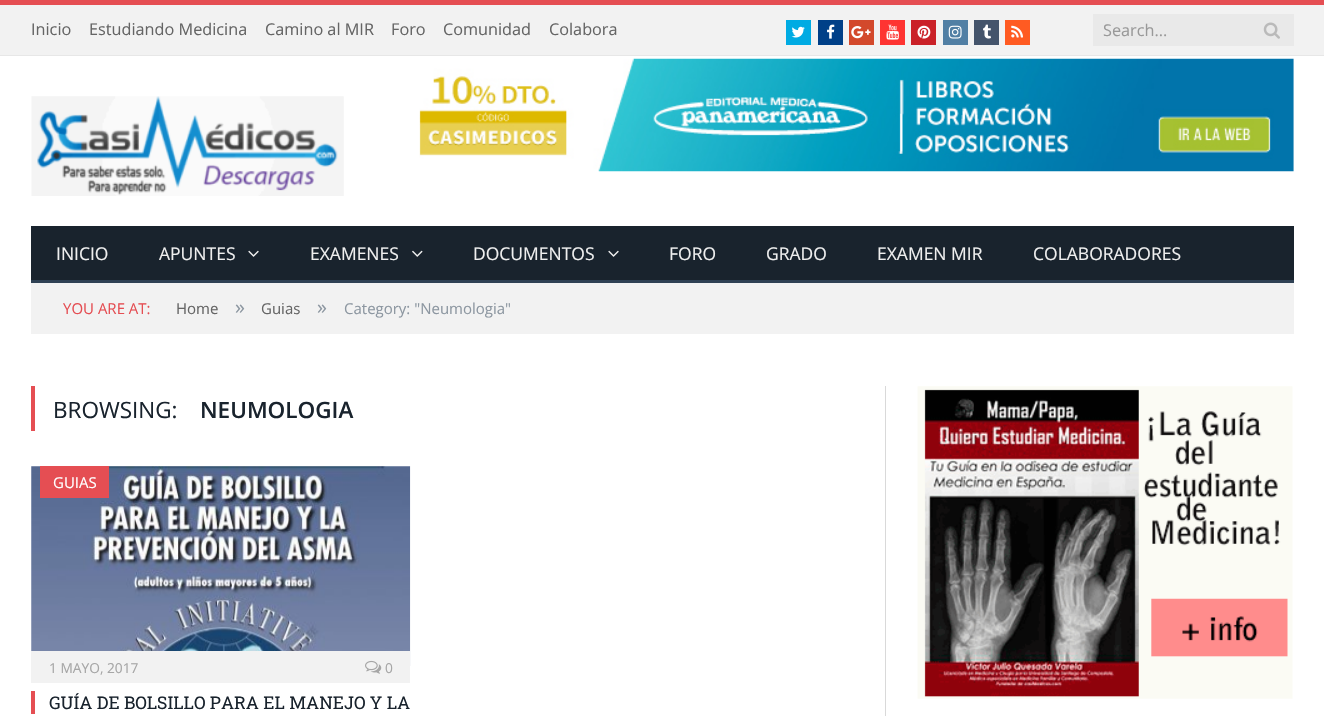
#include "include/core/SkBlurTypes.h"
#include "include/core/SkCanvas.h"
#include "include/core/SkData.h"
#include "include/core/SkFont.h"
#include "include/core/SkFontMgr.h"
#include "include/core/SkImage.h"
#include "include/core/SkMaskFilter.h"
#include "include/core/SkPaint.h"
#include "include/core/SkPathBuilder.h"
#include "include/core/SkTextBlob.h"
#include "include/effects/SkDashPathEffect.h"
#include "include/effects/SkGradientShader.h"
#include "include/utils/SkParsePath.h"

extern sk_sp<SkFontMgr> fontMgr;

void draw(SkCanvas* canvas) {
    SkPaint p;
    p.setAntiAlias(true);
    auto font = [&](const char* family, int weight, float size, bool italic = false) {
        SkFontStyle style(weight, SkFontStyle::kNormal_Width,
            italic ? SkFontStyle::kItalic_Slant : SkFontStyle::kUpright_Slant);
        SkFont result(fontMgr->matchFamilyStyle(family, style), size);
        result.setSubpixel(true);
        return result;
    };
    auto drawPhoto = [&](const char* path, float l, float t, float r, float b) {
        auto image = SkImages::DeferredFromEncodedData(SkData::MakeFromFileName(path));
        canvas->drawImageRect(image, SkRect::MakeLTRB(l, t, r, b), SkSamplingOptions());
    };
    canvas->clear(0xFFFFFFFF);
    {
        const struct { float l, t, r, b; SkColor color; } items[] = {
            {0, 5, 1324, 55, 0xFFF2F2F2},
            {0, 0, 1324, 5, 0xFFE54E53},
            {0, 55, 1324, 56, 0xFFE7E7E7},
        };
        for (auto [l, t, r, b, color] : items) {
            p.setColor(color);
            canvas->drawRect(SkRect::MakeLTRB(l, t, r, b), p);
        }
    }
    auto font1 = font("Open Sans", 400, 16.25f);
    p.setColor(0xFF656565);
    {
        const struct { const char* s; float x, y; } items[] = {
            {"Inicio", 31, 35},
            {"Estudiando Medicina", 89, 35},
            {"Camino al MIR", 265, 35},
            {"Foro", 391, 35},
            {"Comunidad", 443, 35},
            {"Colabora", 549, 35},
        };
        for (auto [s, x, y] : items) {
            canvas->drawString(s, x, y, font1, p);
        }
    }
    p.setColor(0xFF00ABE3);
    canvas->drawRect(SkRect::MakeLTRB(786, 20, 811, 45), p);
    drawPhoto("media/1.png", 791, 26, 805, 38);
    p.setColor(0xFF004088);
    canvas->drawRect(SkRect::MakeLTRB(818, 20, 843, 45), p);
    drawPhoto("media/2.png", 827, 24, 835, 39);
    p.setColor(0xFFD3492C);
    canvas->drawRect(SkRect::MakeLTRB(849, 20, 874, 45), p);
    drawPhoto("media/3.png", 851, 26, 871, 39);
    p.setColor(0xFFFE3432);
    canvas->drawRect(SkRect::MakeLTRB(880, 20, 905, 45), p);
    drawPhoto("media/4.png", 886, 24, 899, 40);
    p.setColor(0xFFCA2128);
    canvas->drawRect(SkRect::MakeLTRB(911, 20, 936, 45), p);
    drawPhoto("media/5.png", 917, 25, 931, 39);
    p.setColor(0xFF517FA4);
    canvas->drawRect(SkRect::MakeLTRB(943, 20, 968, 45), p);
    drawPhoto("media/6.png", 948, 25, 962, 39);
    p.setColor(0xFF44546B);
    canvas->drawRect(SkRect::MakeLTRB(974, 20, 999, 45), p);
    drawPhoto("media/7.png", 983, 24, 991, 39);
    p.setColor(0xFFFF5B22);
    canvas->drawRect(SkRect::MakeLTRB(1005, 20, 1030, 45), p);
    drawPhoto("media/8.png", 1011, 25, 1023, 38);
    p.setColor(0xFFE9E9E9);
    canvas->drawRect(SkRect::MakeLTRB(1093, 14, 1294, 46), p);
    p.setColor(0xFF999999);
    canvas->drawString("Search...", 1103, 36, font1, p);
    drawPhoto("media/9.png", 1263, 22, 1280, 39);
    drawPhoto("media/10.png", 31, 96, 344, 196);
    drawPhoto("media/11.png", 419, 58, 1294, 172);
    p.setColor(0xFF19232D);
    canvas->drawRect(SkRect::MakeLTRB(31, 226, 1294, 280), p);
    p.setColor(0xFF2F4154);
    canvas->drawRect(SkRect::MakeLTRB(31, 280, 1294, 283), p);
    auto font2 = font("Open Sans", 400, 17.5f);
    p.setColor(0xFFEFEFEF);
    canvas->drawString("INICIO", 56, 260, font2, p);
    canvas->drawString("APUNTES", 159, 260, font2, p);
    drawPhoto("media/12.png", 248, 250, 259, 257);
    canvas->drawString("EXAMENES", 310, 260, font2, p);
    drawPhoto("media/13.png", 412, 250, 423, 257);
    canvas->drawString("DOCUMENTOS", 473, 260, font2, p);
    drawPhoto("media/12.png", 608, 250, 619, 257);
    {
        const struct { const char* s; float x, y; } items[] = {
            {"FORO", 669, 260},
            {"GRADO", 766, 260},
            {"EXAMEN MIR", 877, 260},
            {"COLABORADORES", 1033, 260},
        };
        for (auto [s, x, y] : items) {
            canvas->drawString(s, x, y, font2, p);
        }
    }
    p.setColor(0xFFF2F2F2);
    canvas->drawRect(SkRect::MakeLTRB(31, 283, 1294, 334), p);
    auto font3 = font("Open Sans", 400, 15);
    p.setColor(0xFFE54E53);
    canvas->drawString("YOU ARE AT:", 63, 314, font3, p);
    p.setColor(0xFF656565);
    canvas->drawString("Home", 176, 314, font3, p);
    auto font4 = font("Open Sans", 400, 20);
    p.setColor(0xFF8D97A1);
    canvas->drawString("»", 235, 314, font4, p);
    p.setColor(0xFF656565);
    canvas->drawString("Guias", 261, 314, font3, p);
    p.setColor(0xFF8D97A1);
    canvas->drawString("»", 317, 314, font4, p);
    canvas->drawString("Category: \"Neumologia\"", 344, 314, font3, p);
    p.setColor(0xFFE54E53);
    canvas->drawRect(SkRect::MakeLTRB(31, 386, 35, 431), p);
    auto font5 = font("Open Sans", 400, 22.5f);
    p.setColor(0xFF19232D);
    canvas->drawString("BROWSING:", 53, 418, font5, p);
    auto font6 = font("Open Sans", 600, 22.5f);
    canvas->drawString("NEUMOLOGIA", 200, 418, font6, p);
    drawPhoto("media/14.png", 31, 466, 411, 666);
    p.setColor(0xFFE54E53);
    canvas->drawRect(SkRect::MakeLTRB(40, 466, 109, 498), p);
    p.setColor(0xFFFFFFFF);
    canvas->drawString("GUIAS", 53, 488, font3, p);
    p.setColor(0xFFF2F2F2);
    canvas->drawRect(SkRect::MakeLTRB(31, 651, 410, 683), p);
    auto font7 = font("Open Sans", 400, 13.75f);
    p.setColor(0xFFA6A6A6);
    canvas->drawString("1 MAYO, 2017", 49, 673, font7, p);
    drawPhoto("media/15.png", 365, 660, 382, 674);
    canvas->drawString("0", 385, 673, font7, p);
    p.setColor(0xFFE54E53);
    canvas->drawRect(SkRect::MakeLTRB(31, 691, 35, 714), p);
    auto font8 = font("Roboto Slab", 400, 17.5f);
    p.setColor(0xFF19232D);
    canvas->drawString("GUÍA DE BOLSILLO PARA EL MANEJO Y LA", 49, 709, font8, p);
    p.setColor(0xFFD9D9D9);
    canvas->drawRect(SkRect::MakeLTRB(885, 386, 886, 716), p);
    drawPhoto("media/16.png", 917, 386, 1293, 699);
}
